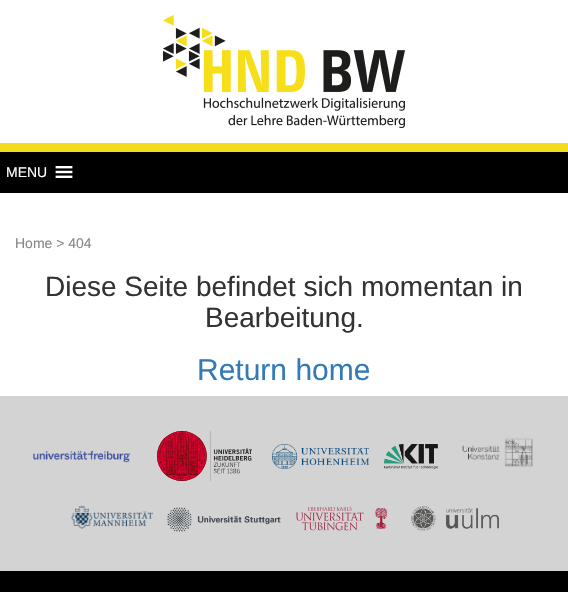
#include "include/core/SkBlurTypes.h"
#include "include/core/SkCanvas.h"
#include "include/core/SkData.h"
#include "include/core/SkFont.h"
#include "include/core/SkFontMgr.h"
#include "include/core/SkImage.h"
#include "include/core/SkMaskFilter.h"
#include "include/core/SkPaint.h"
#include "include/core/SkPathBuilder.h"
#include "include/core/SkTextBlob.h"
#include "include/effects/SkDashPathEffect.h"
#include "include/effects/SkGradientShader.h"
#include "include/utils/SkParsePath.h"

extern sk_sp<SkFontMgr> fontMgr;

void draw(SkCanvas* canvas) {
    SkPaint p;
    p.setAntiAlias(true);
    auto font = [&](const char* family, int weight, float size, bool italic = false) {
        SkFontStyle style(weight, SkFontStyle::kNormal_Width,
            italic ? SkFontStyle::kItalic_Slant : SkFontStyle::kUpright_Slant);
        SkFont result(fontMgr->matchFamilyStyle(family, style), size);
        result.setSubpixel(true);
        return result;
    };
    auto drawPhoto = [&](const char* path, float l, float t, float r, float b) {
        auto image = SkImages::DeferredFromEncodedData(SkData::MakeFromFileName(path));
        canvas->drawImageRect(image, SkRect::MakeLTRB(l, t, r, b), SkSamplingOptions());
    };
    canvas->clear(0xFFFFFFFF);
    drawPhoto("media/1.png", 163, 15, 405, 128);
    p.setColor(0xFF000000);
    canvas->drawRect(SkRect::MakeLTRB(0, 152, 568, 193), p);
    p.setColor(0xFFF3DC1B);
    canvas->drawRect(SkRect::MakeLTRB(0, 143, 568, 152), p);
    auto font1 = font("Liberation Sans", 400, 14);
    p.setColor(0xFFFFFFFF);
    canvas->drawString("MENU", 6, 177, font1, p);
    drawPhoto("media/2.png", 55, 166, 73, 178);
    p.setColor(0xFF878787);
    canvas->drawString("Home > 404", 15, 248, font1, p);
    auto font2 = font("Liberation Sans", 400, 28);
    p.setColor(0xFF333333);
    canvas->drawString("Diese Seite befindet sich momentan in", 45, 296, font2, p);
    canvas->drawString("Bearbeitung.", 205, 327, font2, p);
    auto font3 = font("Liberation Sans", 400, 30);
    p.setColor(0xFF337AB7);
    canvas->drawString("Return home", 197, 380, font3, p);
    p.setColor(0xFFD3D3D3);
    canvas->drawRect(SkRect::MakeLTRB(0, 396, 568, 571), p);
    drawPhoto("media/3.png", 33, 450, 130, 463);
    drawPhoto("media/4.png", 157, 431, 252, 481);
    drawPhoto("media/5.png", 272, 444, 369, 469);
    drawPhoto("media/6.png", 384, 444, 438, 469);
    drawPhoto("media/7.png", 462, 438, 533, 467);
    drawPhoto("media/8.png", 71, 505, 153, 529);
    drawPhoto("media/9.png", 167, 507, 281, 532);
    drawPhoto("media/10.png", 295, 506, 388, 531);
    drawPhoto("media/11.png", 411, 506, 499, 531);
    p.setColor(0xFF000000);
    canvas->drawRect(SkRect::MakeLTRB(0, 571, 568, 592), p);
}
